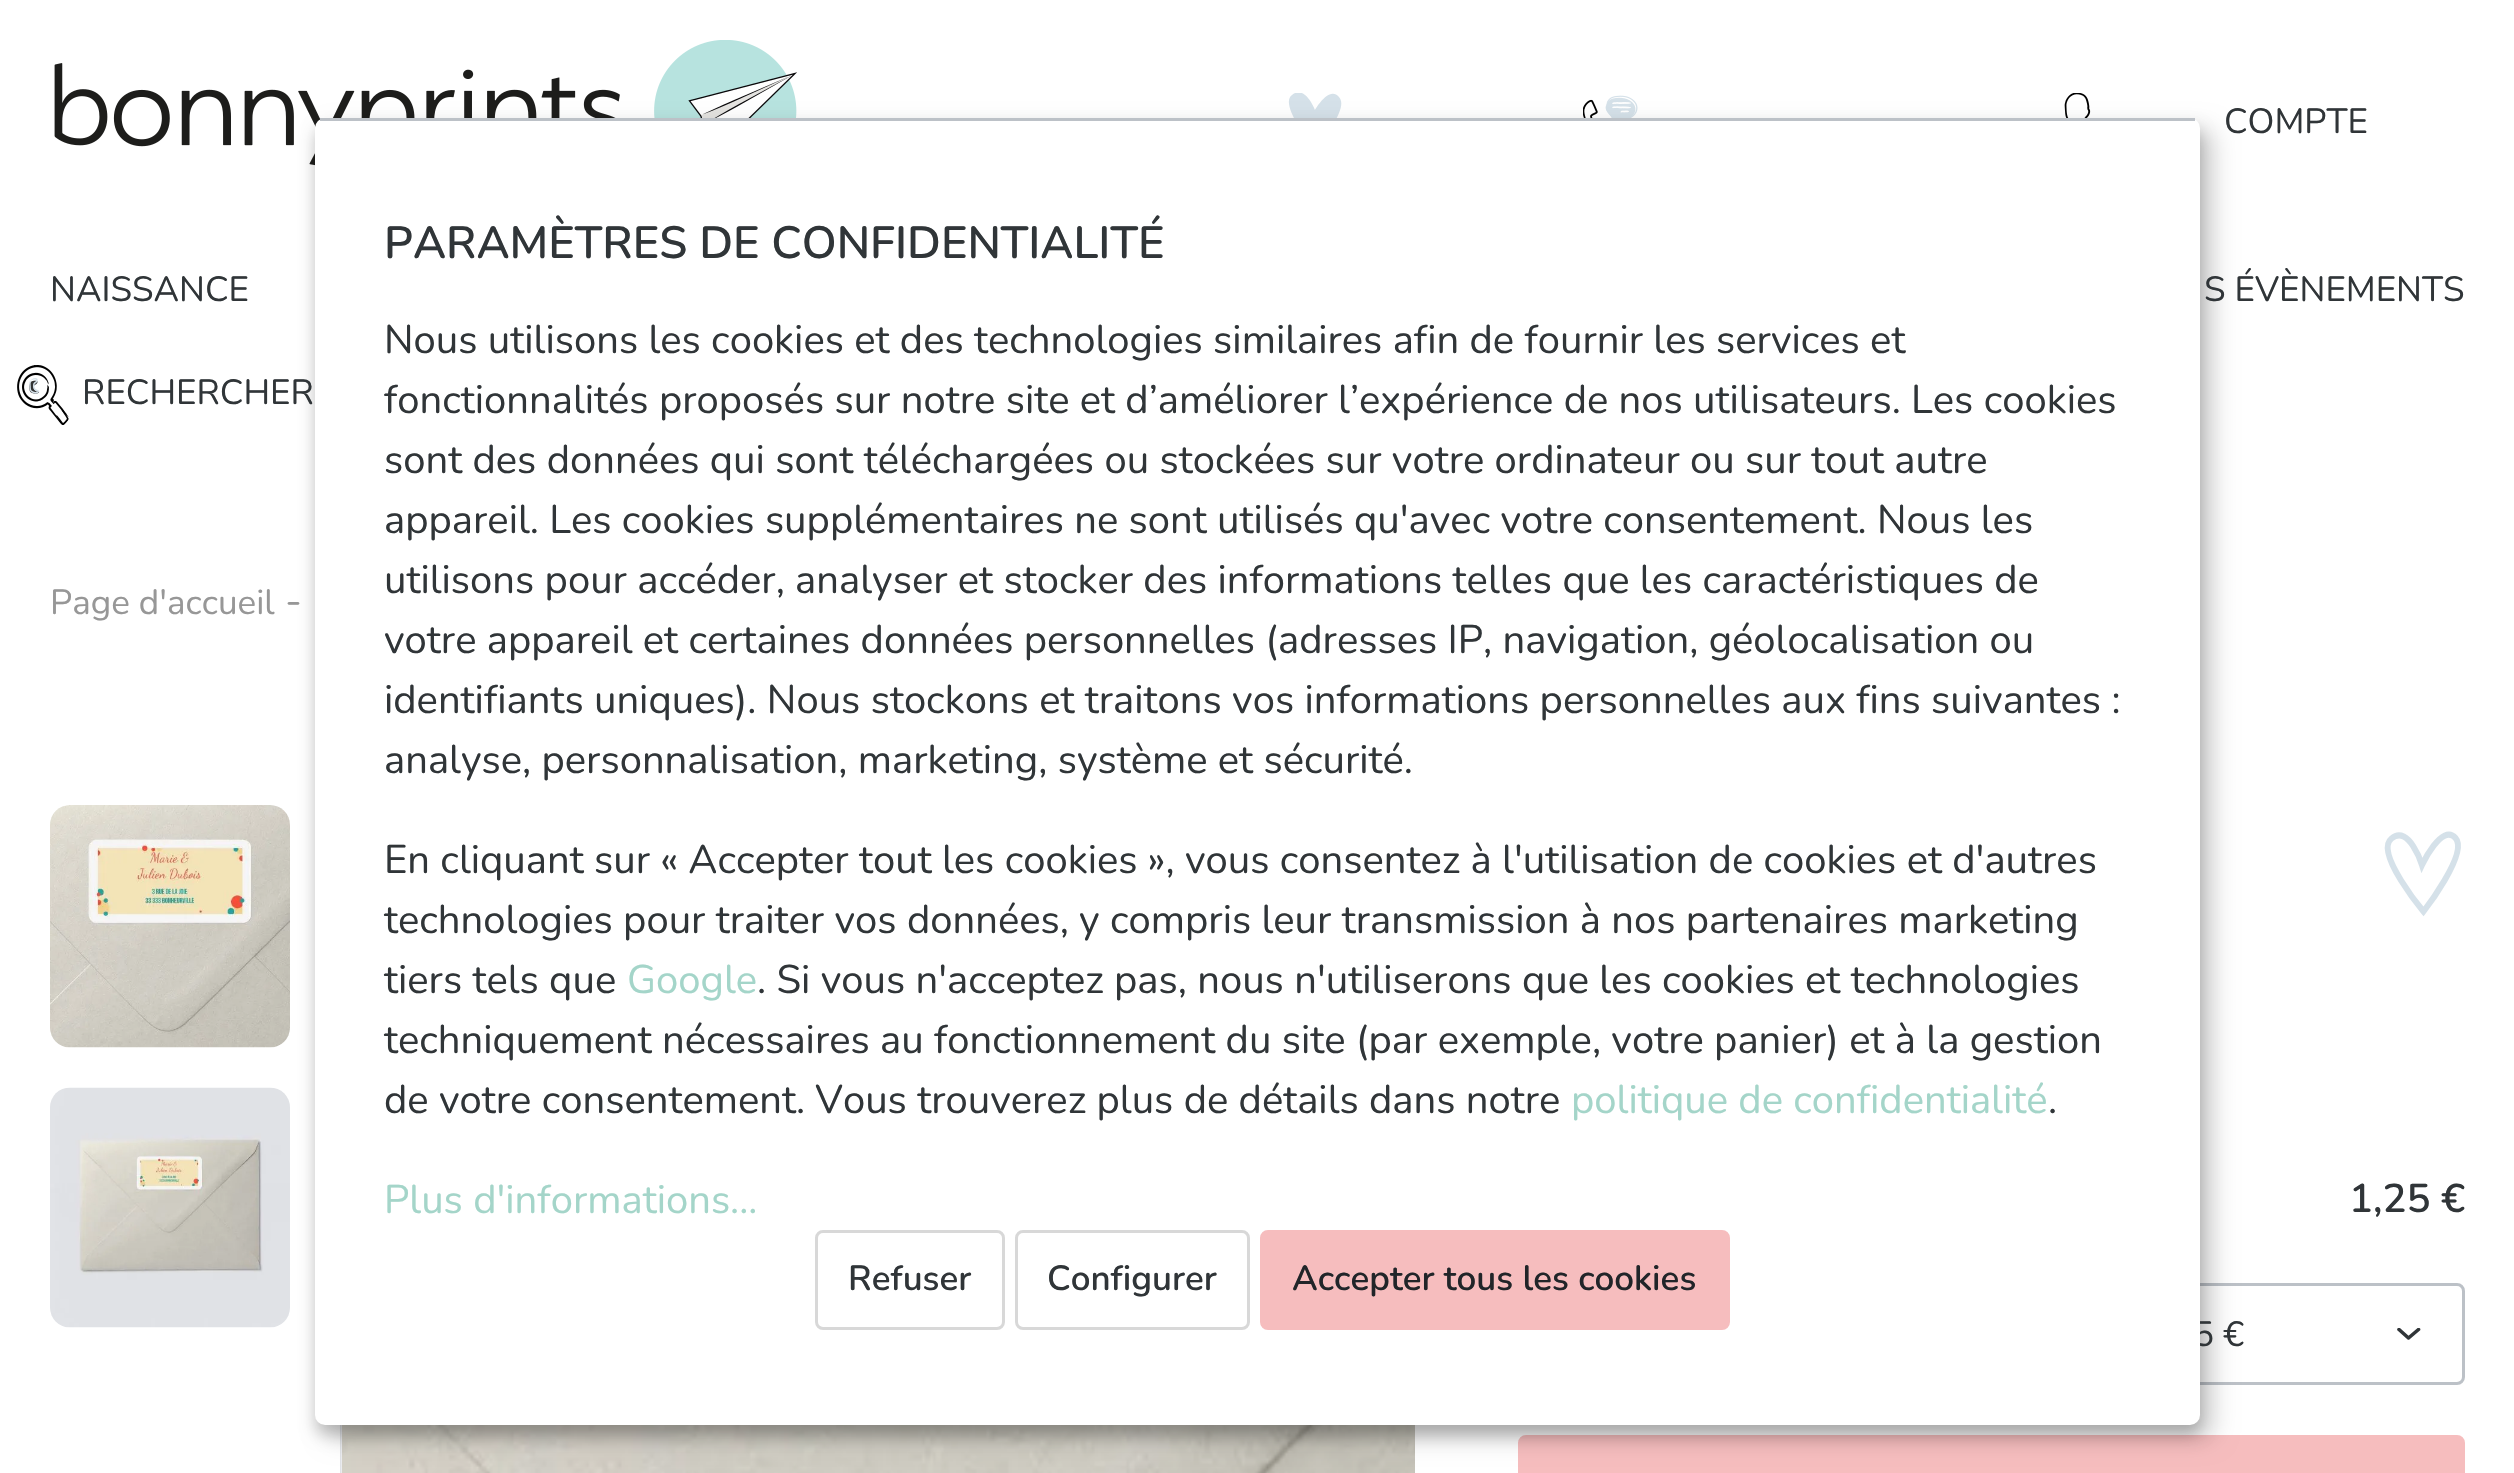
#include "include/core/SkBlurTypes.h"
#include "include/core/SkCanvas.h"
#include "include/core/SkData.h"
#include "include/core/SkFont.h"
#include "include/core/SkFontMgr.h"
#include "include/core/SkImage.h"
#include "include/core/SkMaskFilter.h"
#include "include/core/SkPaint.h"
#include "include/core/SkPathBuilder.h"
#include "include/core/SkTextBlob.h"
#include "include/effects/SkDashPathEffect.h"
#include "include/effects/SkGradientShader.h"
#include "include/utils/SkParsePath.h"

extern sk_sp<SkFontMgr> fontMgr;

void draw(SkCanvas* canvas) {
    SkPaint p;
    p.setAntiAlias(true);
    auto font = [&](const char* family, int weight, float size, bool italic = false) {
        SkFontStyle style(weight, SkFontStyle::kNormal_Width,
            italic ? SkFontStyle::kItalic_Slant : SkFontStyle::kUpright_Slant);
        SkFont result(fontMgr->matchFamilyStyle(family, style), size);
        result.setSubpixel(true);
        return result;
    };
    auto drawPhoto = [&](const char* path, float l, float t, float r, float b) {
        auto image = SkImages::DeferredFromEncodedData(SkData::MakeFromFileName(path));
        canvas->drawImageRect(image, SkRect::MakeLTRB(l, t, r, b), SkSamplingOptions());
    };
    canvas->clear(0xFFFFFFFF);
    drawPhoto("media/1.png", 54, 40, 797, 166);
    canvas->save();
    canvas->clipRect(SkRect::MakeLTRB(1288, 93, 1343, 148));
    p.setColor(0xFFD5E1E9);
    canvas->drawPath(SkPathBuilder().moveTo(1319, 144).cubicTo(1317, 147, 1313, 147, 1311, 144).cubicTo(1302, 132, 1281, 103, 1292, 95).cubicTo(1305, 84, 1315, 110, 1315, 110).cubicTo(1315, 110, 1329, 85, 1339, 97).cubicTo(1348, 107, 1328, 132, 1319, 144).close().detach(), p);
    canvas->restore();
    drawPhoto("media/2.png", 1583, 95, 1638, 118);
    drawPhoto("media/3.png", 2064, 93, 2091, 118);
    auto font1 = font("Nunito", 400, 35);
    p.setColor(0xFF303538);
    canvas->drawString("COMPTE", 2224, 133, font1, p);
    drawPhoto("media/5.png", 50, 805, 290, 1048);
    drawPhoto("media/6.png", 50, 1087, 290, 1328);
    drawPhoto("media/7.png", 340, 1425, 342, 1473);
    drawPhoto("media/8.png", 342, 1425, 1415, 1473);
    canvas->save();
    canvas->clipRect(SkRect::MakeLTRB(2395, 1328, 2423, 1340));
    p.setStyle(SkPaint::kStroke_Style);
    p.setStrokeWidth(3.6f);
    p.setStrokeCap(SkPaint::kRound_Cap);
    p.setStrokeJoin(SkPaint::kRound_Join);
    canvas->drawPath(SkPathBuilder().moveTo(2399, 1329.5f).lineTo(2408.5f, 1338).lineTo(2418.5f, 1329.5f).detach(), p);
    canvas->restore();
    p.setStrokeWidth(3);
    p.setStrokeCap(SkPaint::kButt_Cap);
    p.setStrokeJoin(SkPaint::kMiter_Join);
    p.setColor(0xFFBCC1C7);
    canvas->drawRoundRect(SkRect::MakeLTRB(1894.5f, 1284.5f, 2463.5f, 1383.5f), 6.5f, 6.5f, p);
    p.setStyle(SkPaint::kFill_Style);
    p.setColor(0xFFF6BDBE);
    canvas->drawRoundRect(SkRect::MakeLTRB(1519.5f, 1436.5f, 2463.5f, 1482.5f), 6.5f, 6.5f, p);
    p.setStyle(SkPaint::kStroke_Style);
    canvas->drawRoundRect(SkRect::MakeLTRB(1519.5f, 1436.5f, 2463.5f, 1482.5f), 6.5f, 6.5f, p);
    p.setStyle(SkPaint::kFill_Style);
    p.setColor(0x30000000);
    p.setMaskFilter(SkMaskFilter::MakeBlur(kNormal_SkBlurStyle, 12.5f));
    canvas->drawRoundRect(SkRect::MakeLTRB(328, 130, 2213, 1438), 10, 10, p);
    p.setMaskFilter(nullptr);
    p.setColor(0x33000000);
    p.setMaskFilter(SkMaskFilter::MakeBlur(kNormal_SkBlurStyle, 7.5f));
    canvas->drawRoundRect(SkRect::MakeLTRB(315, 128, 2200, 1435), 10, 10, p);
    p.setMaskFilter(nullptr);
    p.setColor(0xFF303538);
    canvas->drawString("5 €", 2193, 1346, font1, p);
    p.setColor(0xFFFFFFFF);
    canvas->drawRoundRect(SkRect::MakeLTRB(315, 118, 2200, 1425), 10, 10, p);
    p.setColor(0xFFBCC1C7);
    canvas->drawRect(SkRect::MakeLTRB(320, 118, 2195, 121), p);
    auto font2 = font("Nunito", 600, 45);
    p.setColor(0xFF303538);
    canvas->drawString("PARAMÈTRES DE CONFIDENTIALITÉ", 384, 258, font2, p);
    auto font3 = font("Nunito", 400, 40);
    {
        const struct { const char* s; float x, y; } items[] = {
            {"Nous utilisons les cookies et des technologies similaires afin de fournir les services et", 384, 353},
            {"fonctionnalités proposés sur notre site et d’améliorer l’expérience de nos utilisateurs. Les cookies", 384, 413},
            {"sont des données qui sont téléchargées ou stockées sur votre ordinateur ou sur tout autre", 384, 473},
            {"appareil. Les cookies supplémentaires ne sont utilisés qu'avec votre consentement. Nous les", 384, 533},
            {"utilisons pour accéder, analyser et stocker des informations telles que les caractéristiques de", 384, 593},
            {"votre appareil et certaines données personnelles (adresses IP, navigation, géolocalisation ou", 384, 653},
            {"identifiants uniques). Nous stockons et traitons vos informations personnelles aux fins suivantes :", 384, 713},
            {"analyse, personnalisation, marketing, système et sécurité.", 384, 773},
            {"En cliquant sur « Accepter tout les cookies », vous consentez à l'utilisation de cookies et d'autres", 384, 873},
            {"technologies pour traiter vos données, y compris leur transmission à nos partenaires marketing", 384, 933},
            {"tiers tels que", 384, 993},
        };
        for (auto [s, x, y] : items) {
            canvas->drawString(s, x, y, font3, p);
        }
    }
    p.setColor(0xFFA4D5C9);
    canvas->drawString("Google", 627, 993, font3, p);
    p.setColor(0xFF303538);
    {
        const struct { const char* s; float x, y; } items[] = {
            {". Si vous n'acceptez pas, nous n'utiliserons que les cookies et technologies", 757, 993},
            {"techniquement nécessaires au fonctionnement du site (par exemple, votre panier) et à la gestion", 384, 1053},
            {"de votre consentement. Vous trouverez plus de détails dans notre", 384, 1113},
        };
        for (auto [s, x, y] : items) {
            canvas->drawString(s, x, y, font3, p);
        }
    }
    p.setColor(0xFFA4D5C9);
    canvas->drawString("politique de confidentialité", 1571, 1113, font3, p);
    p.setColor(0xFF303538);
    canvas->drawString(".", 2048, 1113, font3, p);
    p.setColor(0xFFA4D5C9);
    canvas->drawString("Plus d'informations...", 384, 1213, font3, p);
    p.setStyle(SkPaint::kStroke_Style);
    p.setColor(0xFFD8D8D8);
    canvas->drawRoundRect(SkRect::MakeLTRB(816.5f, 1231.5f, 1003.5f, 1328.5f), 6.5f, 6.5f, p);
    auto font4 = font("Nunito", 600, 35);
    p.setStyle(SkPaint::kFill_Style);
    p.setColor(0xFF303538);
    canvas->drawString("Refuser", 848, 1290, font4, p);
    p.setStyle(SkPaint::kStroke_Style);
    p.setColor(0xFFD8D8D8);
    canvas->drawRoundRect(SkRect::MakeLTRB(1016.5f, 1231.5f, 1248.5f, 1328.5f), 6.5f, 6.5f, p);
    p.setStyle(SkPaint::kFill_Style);
    p.setColor(0xFF303538);
    canvas->drawString("Configurer", 1047, 1290, font4, p);
    p.setColor(0xFFF6BDBE);
    canvas->drawRoundRect(SkRect::MakeLTRB(1261.5f, 1231.5f, 1728.5f, 1328.5f), 6.5f, 6.5f, p);
    p.setStyle(SkPaint::kStroke_Style);
    canvas->drawRoundRect(SkRect::MakeLTRB(1261.5f, 1231.5f, 1728.5f, 1328.5f), 6.5f, 6.5f, p);
    p.setStyle(SkPaint::kFill_Style);
    p.setColor(0xFF212529);
    canvas->drawString("Accepter tous les cookies", 1292, 1290, font4, p);
    p.setColor(0xFF303538);
    canvas->drawString("NAISSANCE", 50, 301, font1, p);
    canvas->drawString("S ÉVÈNEMENTS", 2204, 301, font1, p);
    drawPhoto("media/4.png", 17, 365, 69, 425);
    canvas->drawString("RECHERCHER", 82, 404, font1, p);
    p.setColor(0xFF979797);
    canvas->drawString("Page d'accueil", 50, 614, font1, p);
    canvas->drawString("-", 285, 614, font3, p);
    p.setStyle(SkPaint::kStroke_Style);
    p.setStrokeWidth(6);
    p.setColor(0xFFD5E1E9);
    canvas->drawPath(SkPathBuilder().moveTo(2423.5f, 911.5f).cubicTo(2423.5f, 911.5f, 2374, 852.5f, 2391.5f, 838.5f).cubicTo(2409, 824, 2422, 865, 2422, 865).cubicTo(2422, 865, 2442, 822.5f, 2455.5f, 838).cubicTo(2469, 853, 2423.5f, 911.5f, 2423.5f, 911.5f).close().detach(), p);
    auto font5 = font("Nunito", 600, 40);
    p.setStyle(SkPaint::kFill_Style);
    p.setColor(0xFF303538);
    canvas->drawString("1,25 €", 2349, 1212, font5, p);
}
